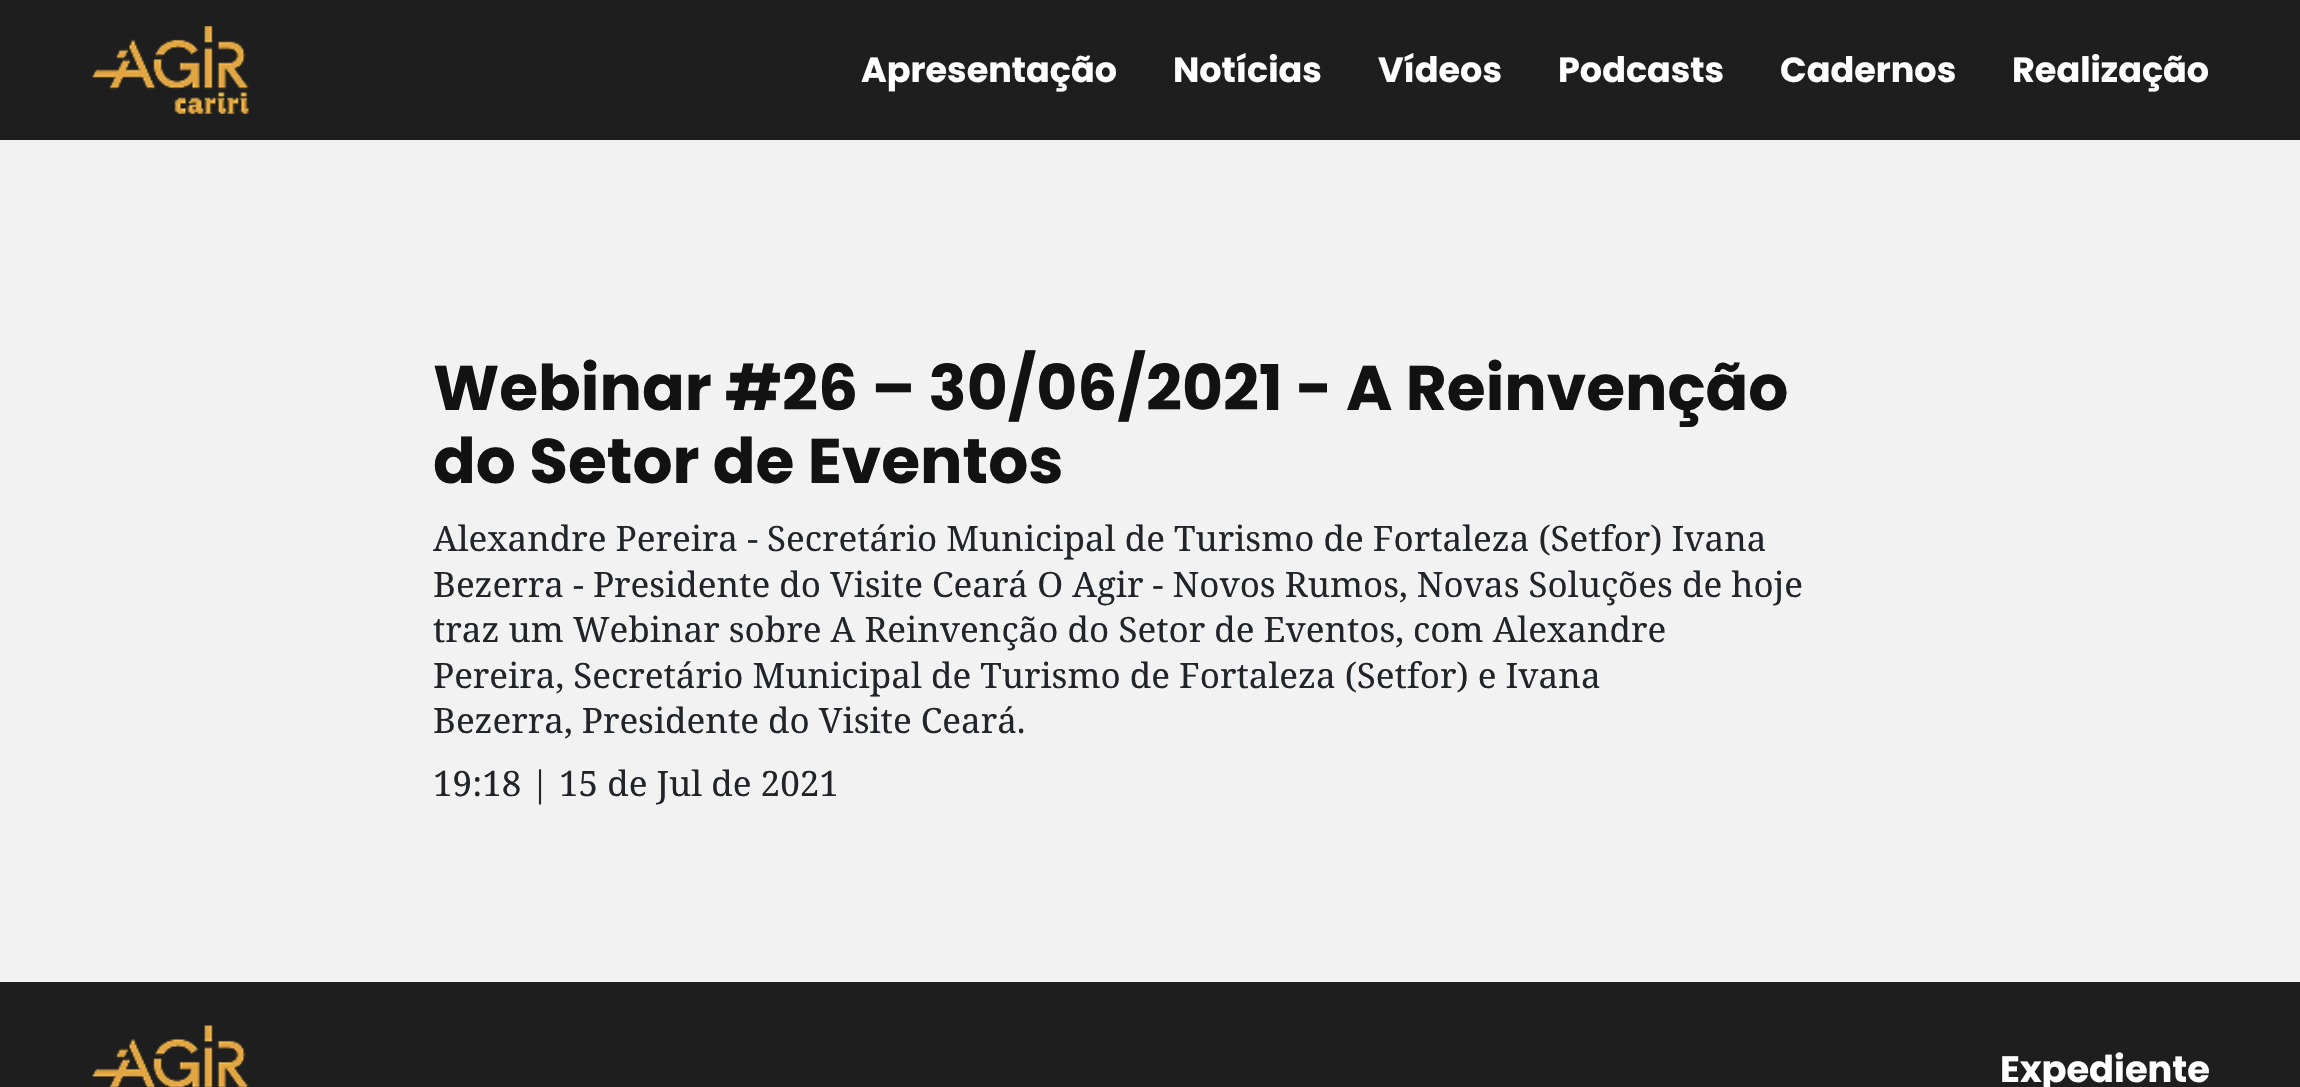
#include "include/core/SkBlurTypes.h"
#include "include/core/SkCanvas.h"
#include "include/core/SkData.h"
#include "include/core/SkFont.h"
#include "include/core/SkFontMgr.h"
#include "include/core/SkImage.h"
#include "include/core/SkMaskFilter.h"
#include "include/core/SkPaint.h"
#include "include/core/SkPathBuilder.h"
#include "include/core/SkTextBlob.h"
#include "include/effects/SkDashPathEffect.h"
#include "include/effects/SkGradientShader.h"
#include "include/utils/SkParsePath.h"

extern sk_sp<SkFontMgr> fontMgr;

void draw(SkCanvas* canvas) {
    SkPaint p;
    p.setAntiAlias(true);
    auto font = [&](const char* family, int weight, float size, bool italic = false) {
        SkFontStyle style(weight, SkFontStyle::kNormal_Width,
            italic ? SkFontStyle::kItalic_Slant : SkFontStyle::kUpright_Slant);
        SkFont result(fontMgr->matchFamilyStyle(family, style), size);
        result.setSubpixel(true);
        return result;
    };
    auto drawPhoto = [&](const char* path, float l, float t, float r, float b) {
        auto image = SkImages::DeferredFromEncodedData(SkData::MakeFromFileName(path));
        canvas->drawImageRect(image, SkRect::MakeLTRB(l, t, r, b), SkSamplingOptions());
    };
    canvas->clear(0xFFF2F2F2);
    p.setColor(0xFF1E1E1E);
    canvas->drawRect(SkRect::MakeLTRB(0, 0, 2300, 140), p);
    drawPhoto("media/1.png", 92, 26, 249, 114);
    auto font1 = font("Poppins", 700, 35);
    p.setColor(0xFFFFFFFF);
    {
        const struct { const char* s; float x, y; } items[] = {
            {"Apresentação", 861, 82},
            {"Notícias", 1173, 82},
            {"Vídeos", 1378, 82},
            {"Podcasts", 1558, 82},
            {"Cadernos", 1780, 82},
            {"Realização", 2012, 82},
        };
        for (auto [s, x, y] : items) {
            canvas->drawString(s, x, y, font1, p);
        }
    }
    auto font2 = font("Poppins", 700, 63);
    p.setColor(0xFF121212);
    canvas->drawString("Webinar #26 – 30/06/2021 - A Reinvenção", 433, 410, font2, p);
    canvas->drawString("do Setor de Eventos", 433, 483, font2, p);
    auto font3 = font("Noto Serif", 400, 35);
    p.setColor(0xFF212529);
    {
        const struct { const char* s; float x, y; } items[] = {
            {"Alexandre Pereira - Secretário Municipal de Turismo de Fortaleza (Setfor) Ivana", 433, 551},
            {"Bezerra - Presidente do Visite Ceará O Agir - Novos Rumos, Novas Soluções de hoje", 433, 597},
            {"traz um Webinar sobre A Reinvenção do Setor de Eventos, com Alexandre", 433, 642},
            {"Pereira, Secretário Municipal de Turismo de Fortaleza (Setfor) e Ivana", 433, 688},
            {"Bezerra, Presidente do Visite Ceará.", 433, 733},
            {"19:18 | 15 de Jul de 2021", 433, 796},
        };
        for (auto [s, x, y] : items) {
            canvas->drawString(s, x, y, font3, p);
        }
    }
    p.setColor(0xFF1E1E1E);
    canvas->drawRect(SkRect::MakeLTRB(0, 982, 2300, 1087), p);
    drawPhoto("media/2.png", 92, 1025, 249, 1087);
    auto font4 = font("Poppins", 700, 36.75f);
    p.setColor(0xFFFFFFFF);
    canvas->drawString("Expediente", 2000, 1082, font4, p);
}
